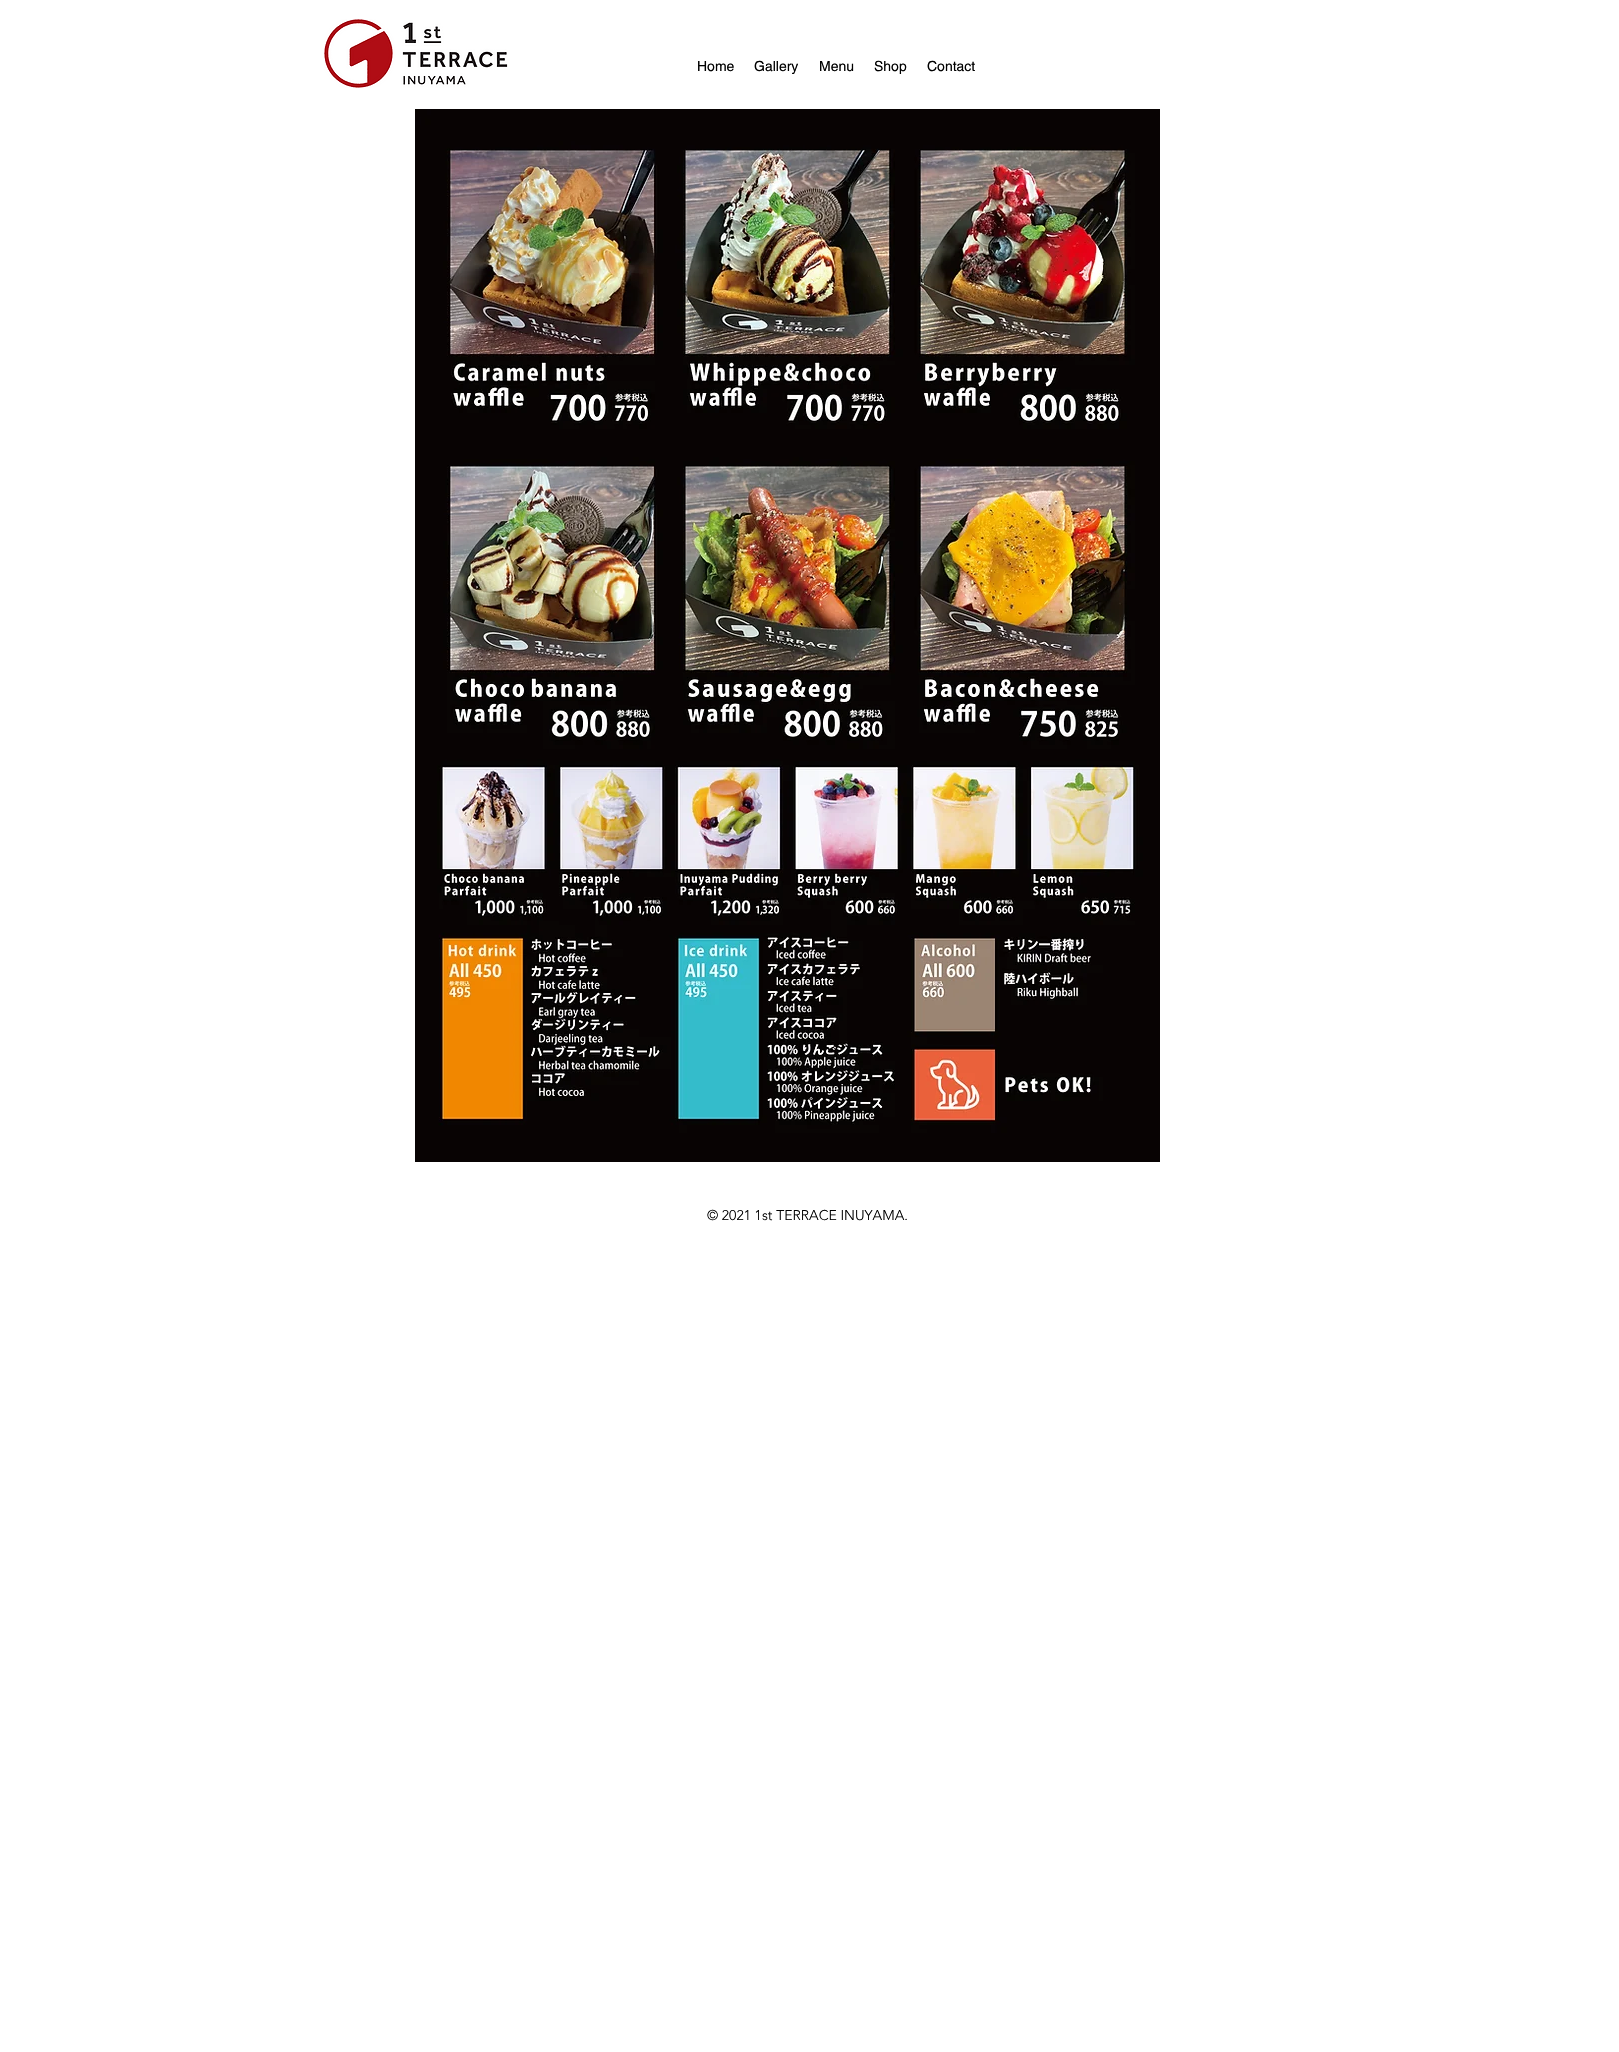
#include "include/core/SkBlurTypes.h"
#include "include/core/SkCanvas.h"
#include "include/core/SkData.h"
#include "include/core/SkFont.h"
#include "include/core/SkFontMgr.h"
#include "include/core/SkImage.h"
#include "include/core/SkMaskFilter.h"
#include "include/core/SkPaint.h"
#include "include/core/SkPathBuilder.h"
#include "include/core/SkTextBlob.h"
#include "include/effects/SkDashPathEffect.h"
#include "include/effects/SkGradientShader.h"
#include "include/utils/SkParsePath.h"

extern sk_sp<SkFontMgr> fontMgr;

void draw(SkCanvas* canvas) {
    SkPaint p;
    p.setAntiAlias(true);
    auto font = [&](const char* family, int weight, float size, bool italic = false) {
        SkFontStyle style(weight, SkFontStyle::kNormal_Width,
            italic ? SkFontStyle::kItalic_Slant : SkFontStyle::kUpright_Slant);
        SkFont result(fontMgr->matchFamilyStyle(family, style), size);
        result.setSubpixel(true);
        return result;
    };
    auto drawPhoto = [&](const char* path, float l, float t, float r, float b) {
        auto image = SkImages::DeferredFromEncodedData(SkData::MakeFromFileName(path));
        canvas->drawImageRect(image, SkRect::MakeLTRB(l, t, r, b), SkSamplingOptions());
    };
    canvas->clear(0xFFFFFFFF);
    drawPhoto("media/1.png", 324, 19, 508, 88);
    auto font1 = font("helvetica", 400, 14);
    p.setColor(0xFF000000);
    {
        const struct { const char* s; float x, y; } items[] = {
            {"Home", 697, 71},
            {"Gallery", 754, 71},
            {"Menu", 819, 71},
            {"Shop", 874, 71},
            {"Contact", 927, 71},
        };
        for (auto [s, x, y] : items) {
            canvas->drawString(s, x, y, font1, p);
        }
    }
    drawPhoto("media/2.png", 415, 109, 1160, 1162);
    auto font2 = font("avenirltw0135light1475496", 300, 14);
    canvas->drawString("© 2021 1st TERRACE INUYAMA.", 707, 1220, font2, p);
}
